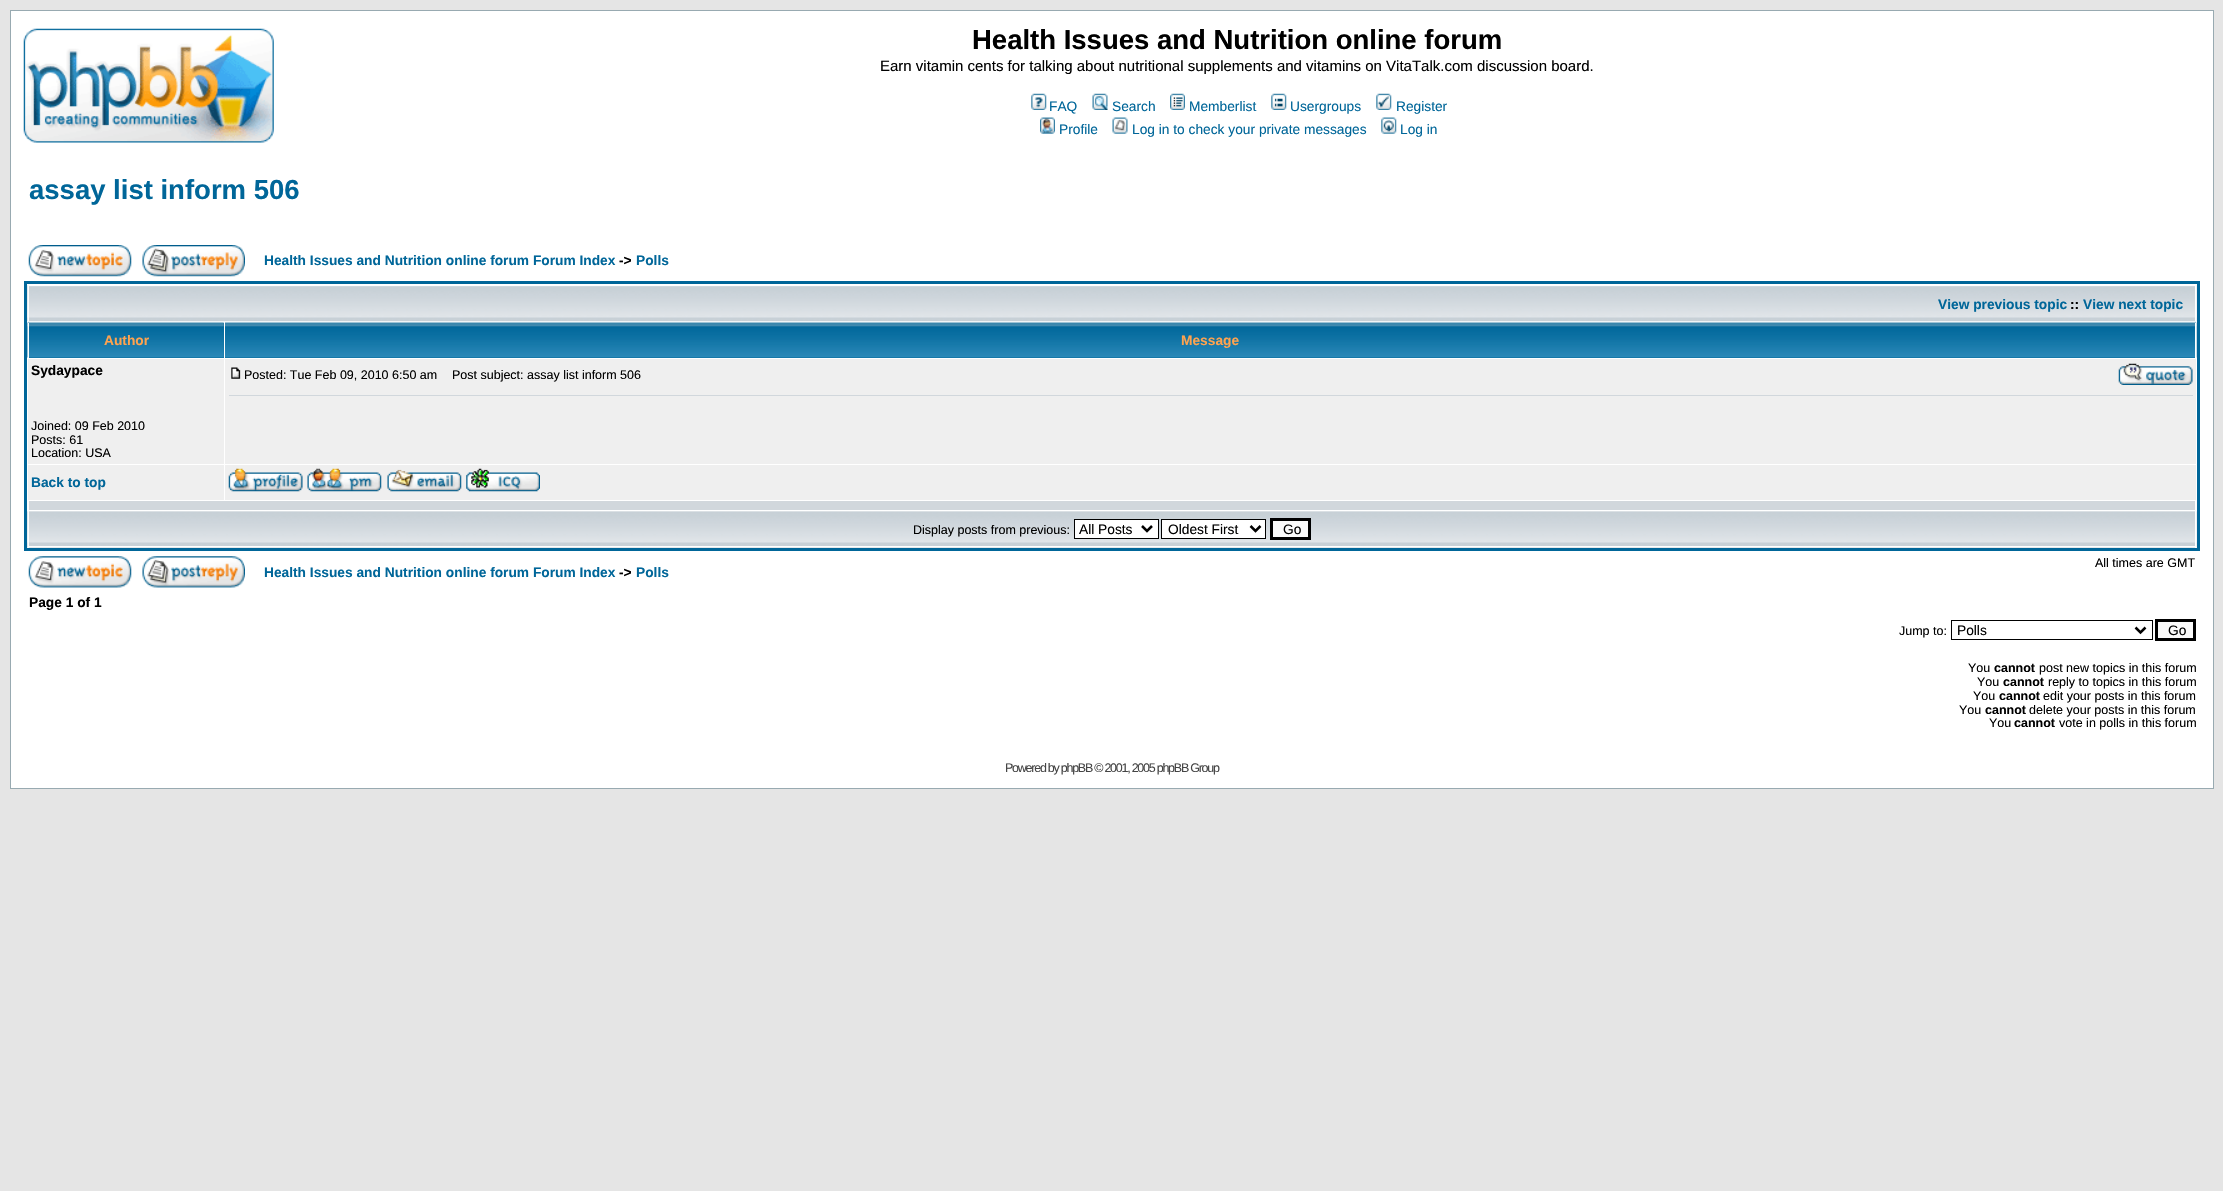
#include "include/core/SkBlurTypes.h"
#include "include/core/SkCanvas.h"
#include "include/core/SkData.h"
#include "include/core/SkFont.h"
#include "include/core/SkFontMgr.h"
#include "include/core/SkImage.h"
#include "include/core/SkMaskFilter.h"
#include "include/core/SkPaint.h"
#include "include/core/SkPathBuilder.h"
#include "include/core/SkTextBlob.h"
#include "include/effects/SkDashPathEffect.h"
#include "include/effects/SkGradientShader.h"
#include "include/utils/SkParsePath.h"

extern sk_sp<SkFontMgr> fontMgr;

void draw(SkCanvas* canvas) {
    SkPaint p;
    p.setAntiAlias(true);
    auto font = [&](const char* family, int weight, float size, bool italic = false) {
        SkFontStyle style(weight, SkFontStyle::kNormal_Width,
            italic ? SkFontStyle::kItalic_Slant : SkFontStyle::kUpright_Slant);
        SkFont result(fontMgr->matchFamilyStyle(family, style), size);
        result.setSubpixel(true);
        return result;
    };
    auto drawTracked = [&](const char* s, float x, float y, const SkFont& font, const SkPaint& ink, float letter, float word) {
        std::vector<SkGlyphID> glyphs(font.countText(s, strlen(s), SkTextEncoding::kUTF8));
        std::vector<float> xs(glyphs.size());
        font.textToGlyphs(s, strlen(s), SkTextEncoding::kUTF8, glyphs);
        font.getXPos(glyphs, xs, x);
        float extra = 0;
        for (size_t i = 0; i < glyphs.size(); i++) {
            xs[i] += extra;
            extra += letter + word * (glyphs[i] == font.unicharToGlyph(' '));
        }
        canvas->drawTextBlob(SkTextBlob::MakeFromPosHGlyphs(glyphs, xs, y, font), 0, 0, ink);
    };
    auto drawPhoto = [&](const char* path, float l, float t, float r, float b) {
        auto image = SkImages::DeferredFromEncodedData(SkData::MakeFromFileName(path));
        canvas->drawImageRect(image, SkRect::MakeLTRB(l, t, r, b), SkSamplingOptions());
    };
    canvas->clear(0xFFE5E5E5);
    p.setColor(0xFFFFFFFF);
    canvas->drawRect(SkRect::MakeLTRB(10.5f, 10.5f, 2213.5f, 788.5f), p);
    p.setStyle(SkPaint::kStroke_Style);
    p.setStrokeWidth(1);
    p.setColor(0xFF98AAB1);
    canvas->drawRect(SkRect::MakeLTRB(10.5f, 10.5f, 2213.5f, 788.5f), p);
    drawPhoto("media/1.png", 23, 28, 274, 143);
    auto font1 = font("Liberation Sans", 700, 27.5f);
    p.setStyle(SkPaint::kFill_Style);
    p.setColor(0xFF000000);
    canvas->drawString("Health Issues and Nutrition online forum", 972, 49, font1, p);
    auto font2 = font("Liberation Sans", 400, 15);
    canvas->drawString("Earn vitamin cents for talking about nutritional supplements and vitamins on VitaTalk.com discussion board.", 880, 71, font2, p);
    drawPhoto("media/2.png", 1031, 93, 1047, 110);
    auto font3 = font("Liberation Sans", 400, 13.75f);
    p.setColor(0xFF006699);
    canvas->drawString("FAQ", 1049, 111, font3, p);
    drawPhoto("media/3.png", 1092, 93, 1108, 110);
    canvas->drawString("Search", 1112, 111, font3, p);
    drawPhoto("media/4.png", 1170, 93, 1185, 110);
    canvas->drawString("Memberlist", 1189, 111, font3, p);
    drawPhoto("media/5.png", 1271, 93, 1287, 110);
    canvas->drawString("Usergroups", 1290, 111, font3, p);
    drawPhoto("media/6.png", 1376, 93, 1392, 110);
    canvas->drawString("Register", 1396, 111, font3, p);
    drawPhoto("media/7.png", 1040, 117, 1055, 134);
    canvas->drawString("Profile", 1059, 134, font3, p);
    drawPhoto("media/8.png", 1112, 117, 1128, 134);
    canvas->drawString("Log in to check your private messages", 1132, 134, font3, p);
    drawPhoto("media/9.png", 1381, 117, 1397, 134);
    canvas->drawString("Log in", 1400, 134, font3, p);
    canvas->drawString("assay list inform 506", 29, 199, font1, p);
    drawPhoto("media/10.png", 28, 245, 132, 277);
    drawPhoto("media/11.png", 142, 245, 245, 277);
    auto font4 = font("Liberation Sans", 700, 13.75f);
    canvas->drawString("Health Issues and Nutrition online forum Forum Index", 264, 265, font4, p);
    p.setColor(0xFF000000);
    canvas->drawString("->", 619, 265, font4, p);
    p.setColor(0xFF006699);
    canvas->drawString("Polls", 636, 265, font4, p);
    p.setStyle(SkPaint::kStroke_Style);
    p.setStrokeWidth(3);
    canvas->drawRect(SkRect::MakeLTRB(25.5f, 282.5f, 2198.5f, 549.5f), p);
    drawPhoto("media/12.png", 27, 285, 2197, 322);
    p.setStyle(SkPaint::kFill_Style);
    {
        const struct { float l, t, r, b; SkColor color; } items[] = {
            {28, 285, 2196, 286, 0xFFFFFFFF},
            {2195, 285, 2196, 321, 0xFFFFFFFF},
            {28, 285, 29, 321, 0xFFFFFFFF},
        };
        for (auto [l, t, r, b, color] : items) {
            p.setColor(color);
            canvas->drawRect(SkRect::MakeLTRB(l, t, r, b), p);
        }
    }
    p.setColor(0xFF006699);
    canvas->drawString("View previous topic", 1938, 309, font4, p);
    p.setColor(0xFF000000);
    canvas->drawString("::", 2070, 309, font4, p);
    p.setColor(0xFF006699);
    canvas->drawString("View next topic", 2083, 309, font4, p);
    canvas->drawRect(SkRect::MakeLTRB(29, 323, 224, 358), p);
    drawPhoto("media/13.png", 27, 322, 224, 358);
    p.setColor(0xFFFFFFFF);
    canvas->drawRect(SkRect::MakeLTRB(28, 323, 29, 358), p);
    p.setColor(0xFFFFA34F);
    canvas->drawString("Author", 104, 345, font4, p);
    p.setColor(0xFF006699);
    canvas->drawRect(SkRect::MakeLTRB(225, 357, 2195, 358), p);
    drawPhoto("media/14.png", 225, 322, 2197, 358);
    p.setColor(0xFFFFFFFF);
    canvas->drawRect(SkRect::MakeLTRB(2195, 323, 2196, 358), p);
    p.setColor(0xFFFFA34F);
    canvas->drawString("Message", 1181, 345, font4, p);
    p.setColor(0xFFEFEFEF);
    canvas->drawRect(SkRect::MakeLTRB(28, 359, 224, 464), p);
    p.setColor(0xFF000000);
    canvas->drawString("Sydaypace", 31, 375, font4, p);
    auto font5 = font("Liberation Sans", 400, 12.5f);
    {
        const struct { const char* s; float x, y; } items[] = {
            {"Joined: 09 Feb 2010", 31, 430},
            {"Posts: 61", 31, 444},
            {"Location: USA", 31, 457},
        };
        for (auto [s, x, y] : items) {
            canvas->drawString(s, x, y, font5, p);
        }
    }
    p.setColor(0xFFEFEFEF);
    canvas->drawRect(SkRect::MakeLTRB(225, 359, 2196, 464), p);
    drawPhoto("media/15.png", 231, 367, 241, 379);
    p.setColor(0xFF000000);
    canvas->drawString("Posted: Tue Feb 09, 2010 6:50 am", 244, 379, font5, p);
    canvas->drawString("Post subject: assay list inform 506", 452, 379, font5, p);
    drawPhoto("media/16.png", 2118, 363, 2193, 385);
    p.setColor(0xFFD1D7DC);
    canvas->drawRect(SkRect::MakeLTRB(229, 395, 2193, 396), p);
    p.setColor(0xFFEFEFEF);
    canvas->drawRect(SkRect::MakeLTRB(28, 465, 224, 500), p);
    p.setColor(0xFF006699);
    canvas->drawString("Back to top", 31, 487, font4, p);
    p.setColor(0xFFEFEFEF);
    canvas->drawRect(SkRect::MakeLTRB(225, 465, 2196, 500), p);
    drawPhoto("media/17.png", 228, 468, 303, 492);
    drawPhoto("media/18.png", 307, 468, 382, 492);
    drawPhoto("media/19.png", 387, 469, 462, 492);
    drawPhoto("media/20.png", 466, 468, 540, 492);
    p.setColor(0xFFD1D7DC);
    canvas->drawRect(SkRect::MakeLTRB(29, 501, 2195, 510), p);
    drawPhoto("media/21.png", 27, 511, 2197, 548);
    {
        const struct { float l, t, r, b; SkColor color; } items[] = {
            {2195, 511, 2196, 548, 0xFFFFFFFF},
            {28, 546, 2196, 547, 0xFFFFFFFF},
            {28, 511, 29, 548, 0xFFFFFFFF},
        };
        for (auto [l, t, r, b, color] : items) {
            p.setColor(color);
            canvas->drawRect(SkRect::MakeLTRB(l, t, r, b), p);
        }
    }
    p.setColor(0xFF000000);
    canvas->drawString("Display posts from previous:", 913, 534, font5, p);
    p.setColor(0xFFFFFFFF);
    canvas->drawRect(SkRect::MakeLTRB(1074.5f, 519.5f, 1158.5f, 538.5f), p);
    p.setStyle(SkPaint::kStroke_Style);
    p.setStrokeWidth(1);
    p.setColor(0xFF000000);
    canvas->drawRect(SkRect::MakeLTRB(1074.5f, 519.5f, 1158.5f, 538.5f), p);
    p.setStrokeWidth(2.5f);
    canvas->drawPath(SkPathBuilder().moveTo(1142, 526).lineTo(1147, 531).lineTo(1152, 526).detach(), p);
    p.setStyle(SkPaint::kFill_Style);
    canvas->drawString("All Posts", 1079, 534, font3, p);
    p.setColor(0xFFFFFFFF);
    canvas->drawRect(SkRect::MakeLTRB(1161.5f, 519.5f, 1265.5f, 538.5f), p);
    p.setStyle(SkPaint::kStroke_Style);
    p.setStrokeWidth(1);
    p.setColor(0xFF000000);
    canvas->drawRect(SkRect::MakeLTRB(1161.5f, 519.5f, 1265.5f, 538.5f), p);
    p.setStrokeWidth(2.5f);
    canvas->drawPath(SkPathBuilder().moveTo(1250.5f, 526).lineTo(1255.5f, 531).lineTo(1260.5f, 526).detach(), p);
    p.setStyle(SkPaint::kFill_Style);
    canvas->drawString("Oldest First", 1168, 534, font3, p);
    p.setColor(0xFFFAFAFA);
    canvas->drawRect(SkRect::MakeLTRB(1271.5f, 519.5f, 1309.5f, 538.5f), p);
    p.setStyle(SkPaint::kStroke_Style);
    p.setStrokeWidth(3);
    p.setColor(0xFF000000);
    canvas->drawRect(SkRect::MakeLTRB(1271.5f, 519.5f, 1309.5f, 538.5f), p);
    p.setStyle(SkPaint::kFill_Style);
    canvas->drawString("Go", 1283, 534, font3, p);
    drawPhoto("media/22.png", 28, 556, 132, 588);
    drawPhoto("media/23.png", 142, 556, 245, 588);
    canvas->drawString("All times are GMT", 2095, 567, font5, p);
    p.setColor(0xFF006699);
    canvas->drawString("Health Issues and Nutrition online forum Forum Index", 264, 577, font4, p);
    p.setColor(0xFF000000);
    canvas->drawString("->", 619, 577, font4, p);
    p.setColor(0xFF006699);
    canvas->drawString("Polls", 636, 577, font4, p);
    p.setColor(0xFF000000);
    canvas->drawString("Page 1 of 1", 29, 607, font4, p);
    canvas->drawString("Jump to:", 1899, 635, font5, p);
    p.setStyle(SkPaint::kStroke_Style);
    p.setStrokeWidth(1);
    canvas->drawRect(SkRect::MakeLTRB(1951.5f, 620.5f, 2152.5f, 639.5f), p);
    p.setStrokeWidth(2.5f);
    canvas->drawPath(SkPathBuilder().moveTo(2135.5f, 627.5f).lineTo(2140.5f, 632.5f).lineTo(2145.5f, 627.5f).detach(), p);
    p.setStyle(SkPaint::kFill_Style);
    canvas->drawString("Polls", 1957, 635, font3, p);
    p.setColor(0xFFFAFAFA);
    canvas->drawRect(SkRect::MakeLTRB(2156.5f, 620.5f, 2194.5f, 639.5f), p);
    p.setStyle(SkPaint::kStroke_Style);
    p.setStrokeWidth(3);
    p.setColor(0xFF000000);
    canvas->drawRect(SkRect::MakeLTRB(2156.5f, 620.5f, 2194.5f, 639.5f), p);
    p.setStyle(SkPaint::kFill_Style);
    canvas->drawString("Go", 2168, 635, font3, p);
    canvas->drawString("You", 1968, 672, font5, p);
    auto font6 = font("Liberation Sans", 700, 12.5f);
    canvas->drawString("cannot", 1994, 672, font6, p);
    canvas->drawString("post new topics in this forum", 2039, 672, font5, p);
    canvas->drawString("You", 1977, 686, font5, p);
    canvas->drawString("cannot", 2003, 686, font6, p);
    canvas->drawString("reply to topics in this forum", 2048, 686, font5, p);
    canvas->drawString("You", 1973, 700, font5, p);
    canvas->drawString("cannot", 1999, 700, font6, p);
    canvas->drawString("edit your posts in this forum", 2043, 700, font5, p);
    canvas->drawString("You", 1959, 714, font5, p);
    canvas->drawString("cannot", 1985, 714, font6, p);
    canvas->drawString("delete your posts in this forum", 2029, 714, font5, p);
    canvas->drawString("You", 1989, 727, font5, p);
    canvas->drawString("cannot", 2014, 727, font6, p);
    canvas->drawString("vote in polls in this forum", 2059, 727, font5, p);
    p.setColor(0xFF444444);
    drawTracked("Powered by phpBB © 2001, 2005 phpBB Group", 1005, 772, font5, p, -1.25f, 0);
}
